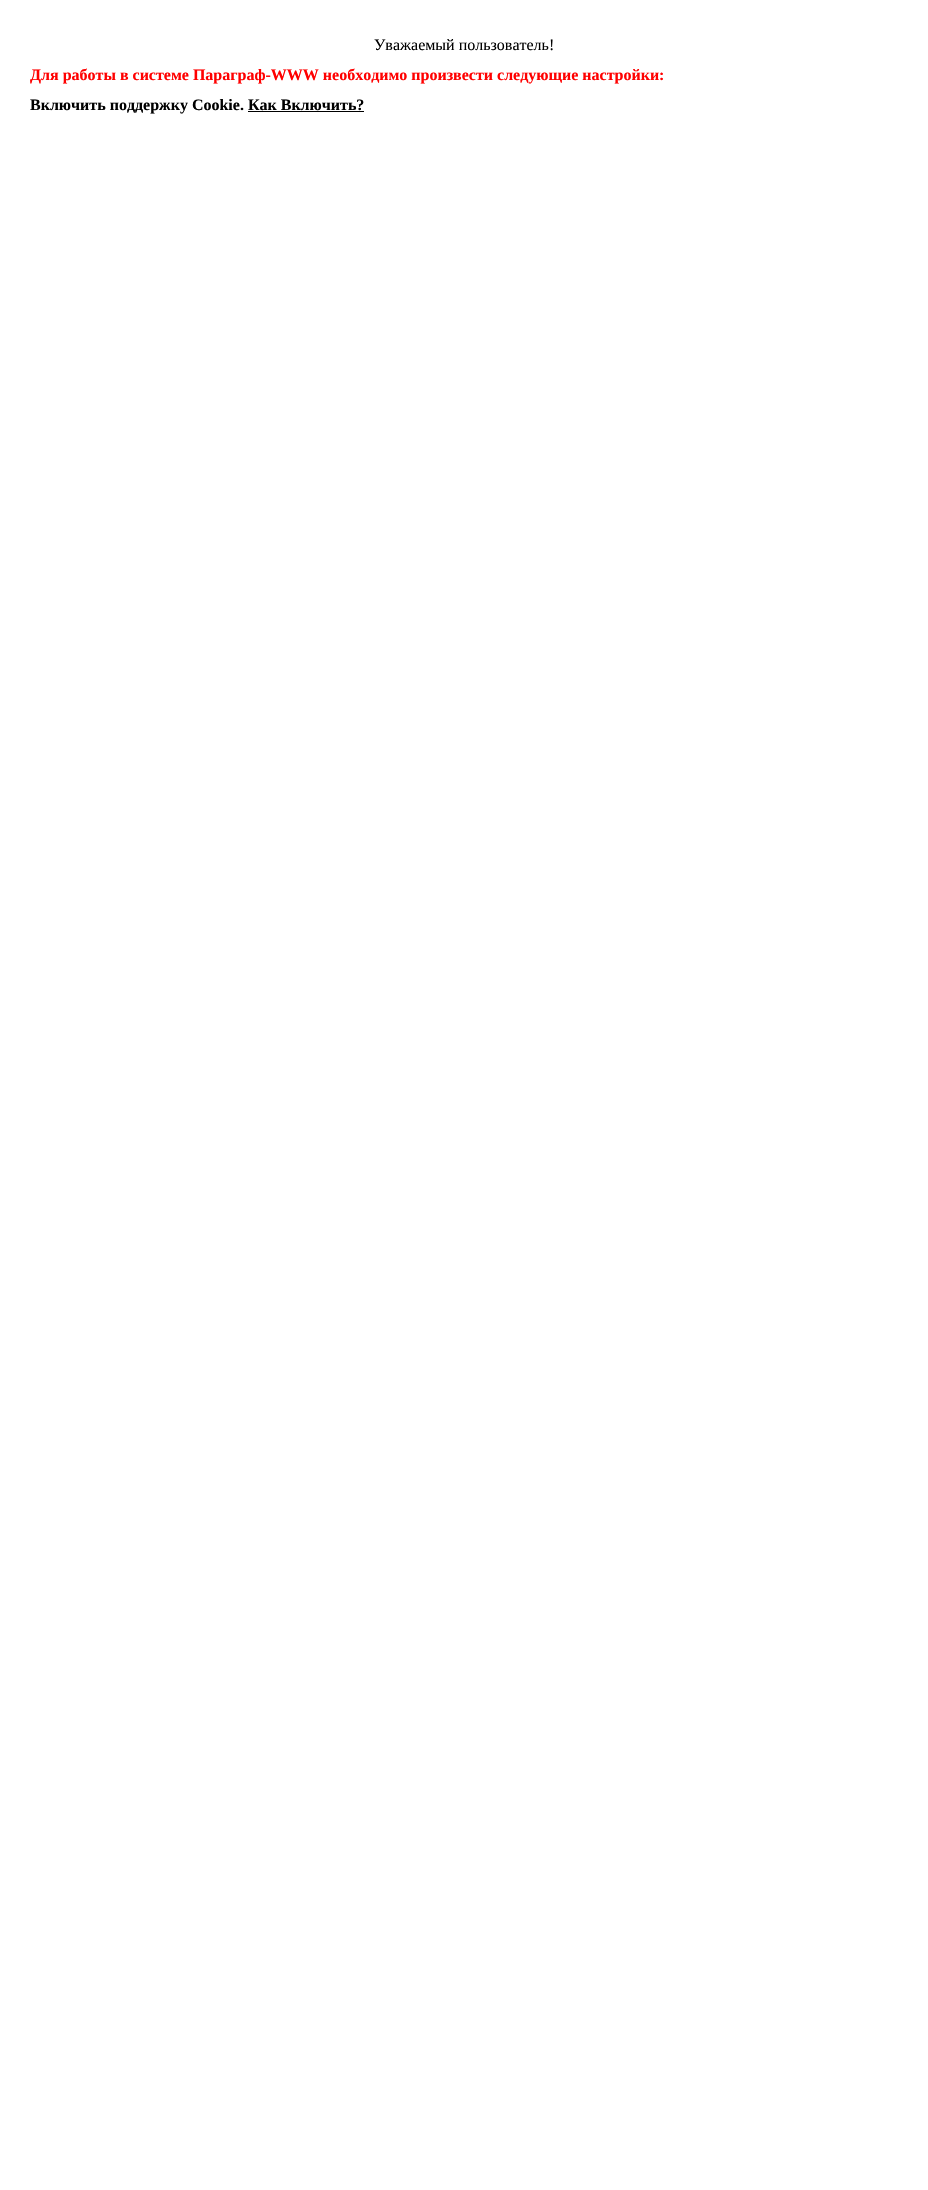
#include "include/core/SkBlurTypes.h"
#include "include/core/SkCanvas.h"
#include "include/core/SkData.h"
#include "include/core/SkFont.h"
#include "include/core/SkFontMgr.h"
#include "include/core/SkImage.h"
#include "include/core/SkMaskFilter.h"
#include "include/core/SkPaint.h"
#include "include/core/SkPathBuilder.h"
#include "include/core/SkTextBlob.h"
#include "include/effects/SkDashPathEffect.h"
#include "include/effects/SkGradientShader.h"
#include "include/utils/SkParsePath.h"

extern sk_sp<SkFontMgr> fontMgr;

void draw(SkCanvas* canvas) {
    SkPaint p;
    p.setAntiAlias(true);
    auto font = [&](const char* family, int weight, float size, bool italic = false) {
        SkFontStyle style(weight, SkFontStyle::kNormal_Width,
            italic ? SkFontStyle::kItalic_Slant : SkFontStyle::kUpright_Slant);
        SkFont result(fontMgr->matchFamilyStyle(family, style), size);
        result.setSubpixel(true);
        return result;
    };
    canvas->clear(0xFFFFFFFF);
    auto font1 = font("Liberation Serif", 400, 16);
    p.setColor(0xFF000000);
    canvas->drawString("Уважаемый пользователь!", 374, 50, font1, p);
    auto font2 = font("Liberation Serif", 700, 16);
    p.setColor(0xFFFF0000);
    canvas->drawString("Для работы в системе Параграф-WWW необходимо произвести следующие настройки:", 30, 80, font2, p);
    p.setColor(0xFF000000);
    canvas->drawString("Включить поддержку Cookie. Как Включить?", 30, 110, font2, p);
    canvas->drawRect(SkRect::MakeLTRB(248, 111, 364, 112), p);
}
